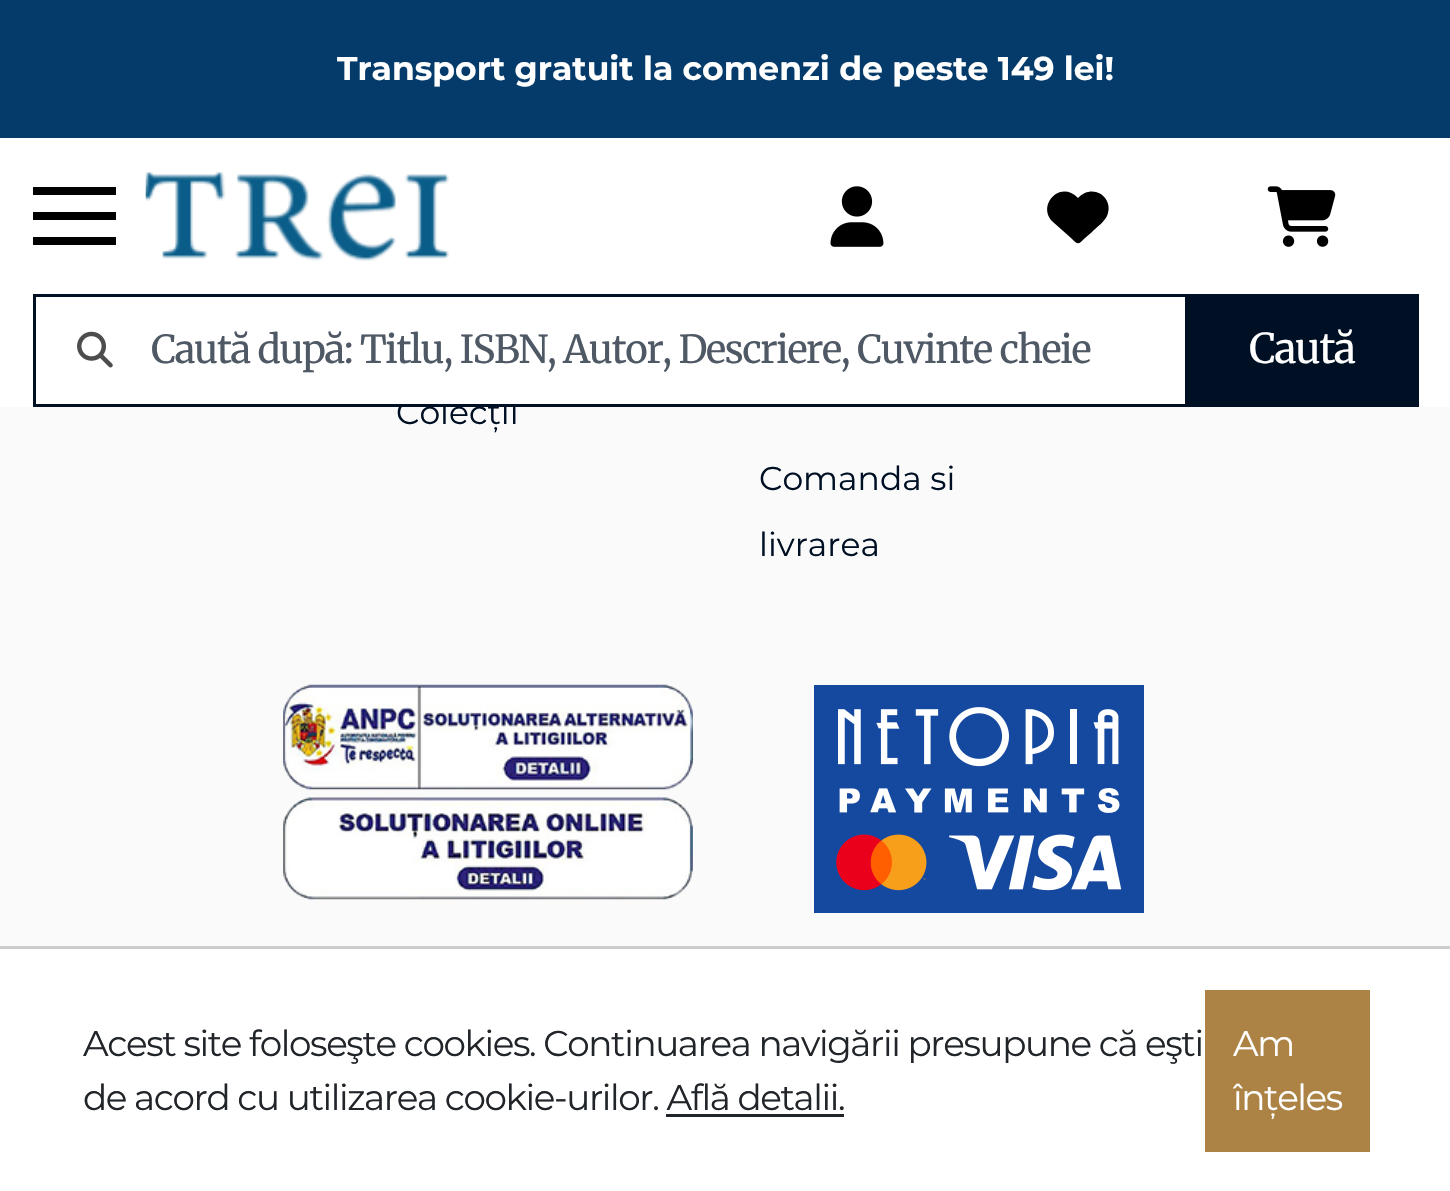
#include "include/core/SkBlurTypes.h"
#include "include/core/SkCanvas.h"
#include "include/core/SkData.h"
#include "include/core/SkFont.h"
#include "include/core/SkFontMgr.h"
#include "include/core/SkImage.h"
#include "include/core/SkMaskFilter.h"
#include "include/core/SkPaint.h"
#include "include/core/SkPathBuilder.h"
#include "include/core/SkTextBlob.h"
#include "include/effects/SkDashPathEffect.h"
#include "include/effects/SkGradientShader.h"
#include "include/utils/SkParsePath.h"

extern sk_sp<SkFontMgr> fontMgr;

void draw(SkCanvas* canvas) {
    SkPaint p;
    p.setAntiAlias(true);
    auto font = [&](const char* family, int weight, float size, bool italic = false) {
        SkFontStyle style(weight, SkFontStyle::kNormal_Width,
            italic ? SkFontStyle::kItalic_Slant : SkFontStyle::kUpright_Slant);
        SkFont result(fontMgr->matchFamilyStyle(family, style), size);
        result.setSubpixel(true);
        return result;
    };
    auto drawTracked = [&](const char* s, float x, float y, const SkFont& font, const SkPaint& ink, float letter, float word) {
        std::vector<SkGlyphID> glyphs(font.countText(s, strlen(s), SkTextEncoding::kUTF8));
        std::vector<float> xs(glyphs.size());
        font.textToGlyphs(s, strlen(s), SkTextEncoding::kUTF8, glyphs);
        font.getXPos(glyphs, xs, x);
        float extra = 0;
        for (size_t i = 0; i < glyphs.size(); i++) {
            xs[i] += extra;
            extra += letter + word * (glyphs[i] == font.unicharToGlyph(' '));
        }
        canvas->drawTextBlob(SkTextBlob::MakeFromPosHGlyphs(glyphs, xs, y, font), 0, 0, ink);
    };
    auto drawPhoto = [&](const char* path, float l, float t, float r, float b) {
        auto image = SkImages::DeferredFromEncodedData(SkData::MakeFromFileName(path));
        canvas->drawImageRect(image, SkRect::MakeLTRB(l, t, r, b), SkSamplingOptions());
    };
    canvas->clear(0xFFFAFAFA);
    auto font1 = font("Montserrat", 400, 33);
    p.setColor(0xFF001024);
    canvas->drawString("Colecții", 396, 424, font1, p);
    p.setColor(0xFFFFFFFF);
    canvas->drawRect(SkRect::MakeLTRB(0, 138, 1450, 407), p);
    p.setColor(0xFF053B6A);
    canvas->drawRect(SkRect::MakeLTRB(0, 0, 1450, 138), p);
    auto font2 = font("Montserrat", 700, 33);
    p.setColor(0xFFFFFFFF);
    canvas->drawString("Transport gratuit la comenzi de peste 149 lei!", 337, 80, font2, p);
    {
        const struct { float l, t, r, b; SkColor color; } items[] = {
            {33, 187, 116, 195, 0xFF000000},
            {33, 212, 116, 220, 0xFF000000},
            {33, 237, 116, 245, 0xFF000000},
        };
        for (auto [l, t, r, b, color] : items) {
            p.setColor(color);
            canvas->drawRect(SkRect::MakeLTRB(l, t, r, b), p);
        }
    }
    drawPhoto("media/1.png", 145, 172, 449, 261);
    drawPhoto("media/2.png", 830, 186, 884, 247);
    canvas->drawPath(SkPathBuilder().moveTo(1053, 222).lineTo(1075, 242).lineTo(1053, 222).lineTo(1071, 238).cubicTo(1078, 245, 1078, 245, 1085, 238).lineTo(1092, 232).cubicTo(1097, 227, 1104, 222, 1107, 216).cubicTo(1115, 198, 1093, 182, 1078, 198).cubicTo(1060, 179, 1036, 206, 1053, 222).close().detach(), p);
    drawPhoto("media/3.png", 1267, 186, 1336, 247);
    drawPhoto("media/4.png", 77, 331, 113, 368);
    {
        const struct { float l, t, r, b; SkColor color; } items[] = {
            {33, 294, 1185, 297, 0xFF001024},
            {33, 404, 1185, 407, 0xFF001024},
            {33, 294, 36, 407, 0xFF001024},
        };
        for (auto [l, t, r, b, color] : items) {
            p.setColor(color);
            canvas->drawRect(SkRect::MakeLTRB(l, t, r, b), p);
        }
    }
    auto font3 = font("Merriweather", 400, 38.5f);
    p.setColor(0xFF4F5865);
    drawTracked("Caută după: Titlu, ISBN, Autor, Descriere, Cuvinte cheie", 151, 363, font3, p, -1.38f, 0);
    p.setColor(0xFF001024);
    canvas->drawRect(SkRect::MakeLTRB(1185, 294, 1419, 407), p);
    auto font4 = font("Merriweather", 400, 41);
    p.setColor(0xFFFFFFFF);
    drawTracked("Caută", 1249, 363, font4, p, -1.38f, 0);
    p.setColor(0xFF001024);
    canvas->drawString("Comanda si", 759, 490, font1, p);
    canvas->drawString("livrarea", 759, 556, font1, p);
    drawPhoto("media/5.png", 283, 684, 693, 790);
    drawPhoto("media/6.png", 283, 797, 693, 900);
    p.setColor(0xFF15499F);
    canvas->drawRect(SkRect::MakeLTRB(814, 685, 1144, 913), p);
    drawPhoto("media/7.png", 836, 707, 1122, 891);
    p.setColor(0xFFFFFFFF);
    canvas->drawRect(SkRect::MakeLTRB(0, 949, 1450, 1191), p);
    p.setColor(0xFFCCCCCC);
    canvas->drawRect(SkRect::MakeLTRB(0, 946, 1450, 949), p);
    auto font5 = font("Montserrat", 400, 35.75f);
    p.setColor(0xFF212529);
    drawTracked("Acest site foloseşte cookies. Continuarea navigării presupune că eşti", 83, 1056, font5, p, -1.38f, 0);
    drawTracked("de acord cu utilizarea cookie-urilor. Află detalii.", 83, 1110, font5, p, -1.38f, 0);
    canvas->drawRect(SkRect::MakeLTRB(666, 1114, 844, 1117), p);
    p.setColor(0xFFAC8345);
    canvas->drawRect(SkRect::MakeLTRB(1205, 990, 1370, 1152), p);
    p.setColor(0xFFFFFFFF);
    drawTracked("Am", 1233, 1056, font5, p, -1.38f, 0);
    drawTracked("înțeles", 1233, 1110, font5, p, -1.38f, 0);
}
